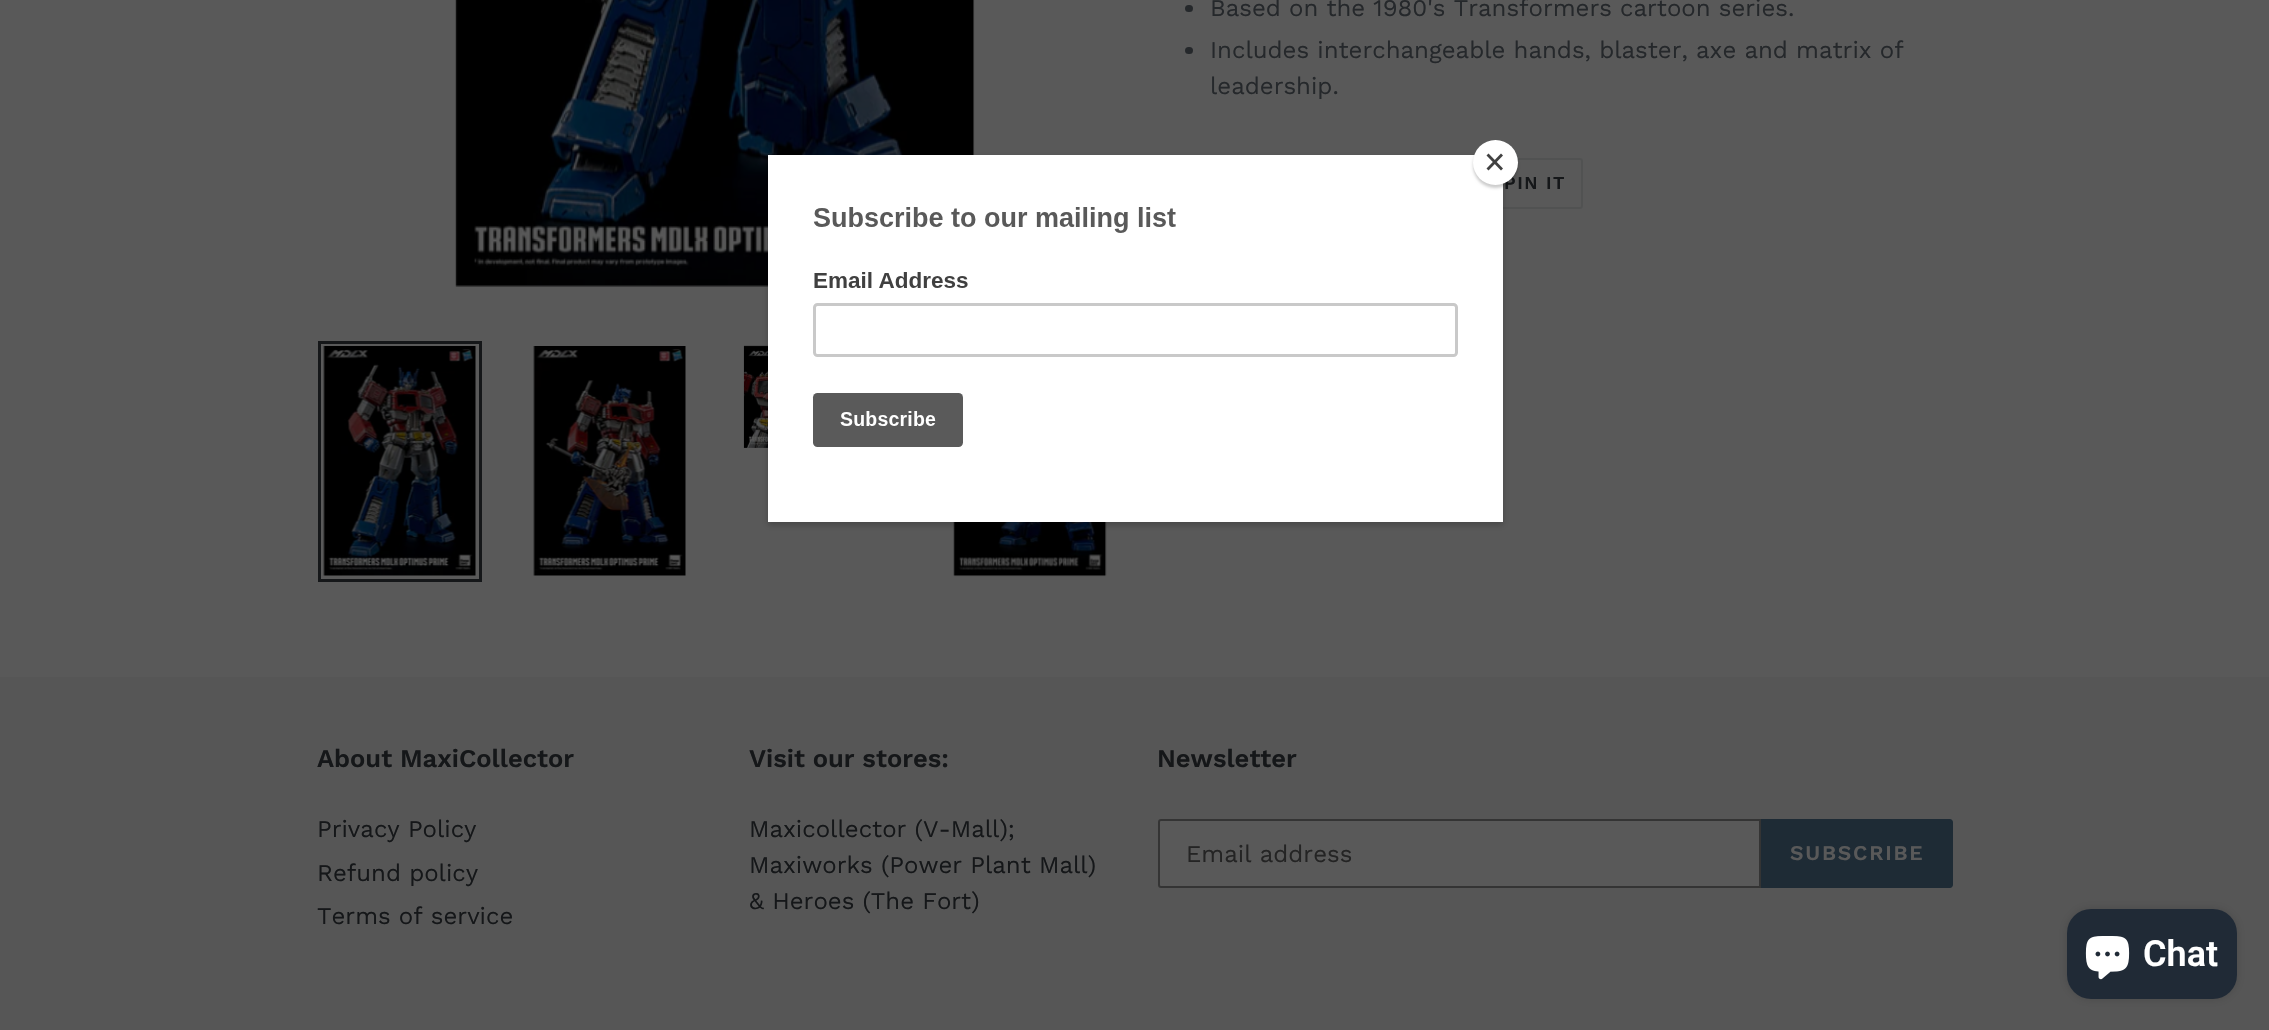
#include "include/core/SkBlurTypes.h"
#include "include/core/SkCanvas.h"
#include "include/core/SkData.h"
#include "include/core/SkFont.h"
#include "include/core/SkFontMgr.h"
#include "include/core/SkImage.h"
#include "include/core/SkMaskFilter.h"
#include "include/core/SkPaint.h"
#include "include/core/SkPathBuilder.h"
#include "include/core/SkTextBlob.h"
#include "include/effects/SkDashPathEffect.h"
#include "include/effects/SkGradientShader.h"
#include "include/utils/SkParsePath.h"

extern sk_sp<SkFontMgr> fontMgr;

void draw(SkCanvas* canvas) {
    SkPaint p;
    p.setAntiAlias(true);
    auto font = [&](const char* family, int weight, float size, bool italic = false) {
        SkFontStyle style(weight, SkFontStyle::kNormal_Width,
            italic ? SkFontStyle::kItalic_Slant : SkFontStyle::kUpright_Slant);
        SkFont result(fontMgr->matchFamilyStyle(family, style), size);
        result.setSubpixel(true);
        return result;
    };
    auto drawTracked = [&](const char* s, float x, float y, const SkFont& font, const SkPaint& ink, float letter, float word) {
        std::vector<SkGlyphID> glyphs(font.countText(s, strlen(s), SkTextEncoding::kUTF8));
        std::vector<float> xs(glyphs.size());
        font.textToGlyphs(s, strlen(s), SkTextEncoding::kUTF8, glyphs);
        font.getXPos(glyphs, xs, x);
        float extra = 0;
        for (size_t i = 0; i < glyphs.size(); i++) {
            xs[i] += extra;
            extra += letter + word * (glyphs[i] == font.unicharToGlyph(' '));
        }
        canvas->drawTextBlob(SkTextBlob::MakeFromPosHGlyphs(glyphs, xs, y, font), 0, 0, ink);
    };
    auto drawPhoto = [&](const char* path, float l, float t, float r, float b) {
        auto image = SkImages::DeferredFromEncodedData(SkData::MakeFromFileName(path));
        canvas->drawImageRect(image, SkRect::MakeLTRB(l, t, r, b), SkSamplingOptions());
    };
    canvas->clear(0xFF595959);
    drawPhoto("media/1.png", 455, 0, 975, 287);
    p.setStyle(SkPaint::kStroke_Style);
    p.setStrokeWidth(3);
    p.setColor(0xFF151719);
    canvas->drawRect(SkRect::MakeLTRB(319.5f, 342.5f, 480.5f, 580.5f), p);
    drawPhoto("media/2.png", 323, 346, 476, 576);
    drawPhoto("media/3.png", 533, 346, 686, 576);
    drawPhoto("media/4.png", 743, 345, 768, 448);
    drawPhoto("media/5.png", 953, 522, 1107, 577);
    p.setStyle(SkPaint::kFill_Style);
    p.setColor(0xFF25282B);
    canvas->drawRoundRect(SkRect::MakeLTRB(1185, 5, 1193, 12), 3.5f, 3.5f, p);
    auto font1 = font("Work Sans", 400, 24);
    canvas->drawString("Based on the 1980's Transformers cartoon series.", 1210, 16, font1, p);
    canvas->drawRoundRect(SkRect::MakeLTRB(1185, 47, 1193, 54), 3.5f, 3.5f, p);
    canvas->drawString("Includes interchangeable hands, blaster, axe and matrix of", 1210, 58, font1, p);
    canvas->drawString("leadership.", 1210, 94, font1, p);
    p.setStyle(SkPaint::kStroke_Style);
    p.setStrokeWidth(2);
    p.setColor(0xFF515252);
    canvas->drawRoundRect(SkRect::MakeLTRB(1452, 159, 1582, 208), 2, 2, p);
    auto font2 = font("Work Sans", 600, 18);
    p.setStyle(SkPaint::kFill_Style);
    p.setColor(0xFF151719);
    drawTracked("PIN IT", 1504, 189, font2, p, 1.5f, 0);
    p.setColor(0xFF565656);
    canvas->drawRect(SkRect::MakeLTRB(0, 677, 2269, 1030), p);
    auto font3 = font("Work Sans", 600, 25.5f);
    p.setColor(0xFF151719);
    canvas->drawString("About MaxiCollector", 317, 767, font3, p);
    {
        const struct { const char* s; float x, y; } items[] = {
            {"Privacy Policy", 317, 837},
            {"Refund policy", 317, 881},
            {"Terms of service", 317, 924},
        };
        for (auto [s, x, y] : items) {
            canvas->drawString(s, x, y, font1, p);
        }
    }
    canvas->drawString("Visit our stores:", 749, 767, font3, p);
    {
        const struct { const char* s; float x, y; } items[] = {
            {"Maxicollector (V-Mall);", 749, 837},
            {"Maxiworks (Power Plant Mall)", 749, 873},
            {"& Heroes (The Fort)", 749, 909},
        };
        for (auto [s, x, y] : items) {
            canvas->drawString(s, x, y, font1, p);
        }
    }
    canvas->drawString("Newsletter", 1157, 767, font3, p);
    p.setColor(0xFF595959);
    canvas->drawPath(SkPathBuilder().moveTo(1161, 820).lineTo(1760, 820).lineTo(1760, 887).lineTo(1161, 887).cubicTo(1160, 887, 1159, 886, 1159, 885).lineTo(1159, 822).cubicTo(1159, 821, 1160, 820, 1161, 820).close().detach(), p);
    p.setStyle(SkPaint::kStroke_Style);
    p.setColor(0xFF343434);
    canvas->drawPath(SkPathBuilder().moveTo(1161, 820).lineTo(1760, 820).lineTo(1760, 887).lineTo(1161, 887).cubicTo(1160, 887, 1159, 886, 1159, 885).lineTo(1159, 822).cubicTo(1159, 821, 1160, 820, 1161, 820).close().detach(), p);
    p.setStyle(SkPaint::kFill_Style);
    p.setColor(0xFF242424);
    canvas->drawString("Email address", 1186, 862, font1, p);
    p.setColor(0xFF1E2B35);
    canvas->drawPath(SkPathBuilder().moveTo(1761, 819).lineTo(1950, 819).cubicTo(1951.5f, 819, 1953, 820.5f, 1953, 822).lineTo(1953, 885).cubicTo(1953, 886.5f, 1951.5f, 888, 1950, 888).lineTo(1761, 888).close().detach(), p);
    auto font4 = font("Work Sans", 600, 21);
    p.setColor(0xFF595959);
    drawTracked("SUBSCRIBE", 1790, 860, font4, p, 1.75f, 0);
    p.setColor(0x33000000);
    p.setMaskFilter(SkMaskFilter::MakeBlur(kNormal_SkBlurStyle, 3));
    canvas->drawRect(SkRect::MakeLTRB(768, 158, 1503, 525), p);
    p.setMaskFilter(nullptr);
    drawPhoto("media/6.png", 768, 155, 1503, 522);
    p.setMaskFilter(SkMaskFilter::MakeBlur(kNormal_SkBlurStyle, 1.5f));
    canvas->drawRoundRect(SkRect::MakeLTRB(1473, 143, 1518, 188), 22.5f, 22.5f, p);
    p.setMaskFilter(nullptr);
    p.setColor(0xFFFFFFFF);
    canvas->drawCircle(1495.5f, 162.5f, 22.5f, p);
    p.setColor(0xFF414141);
    canvas->drawPath(SkPathBuilder().moveTo(1501, 153.5f).lineTo(1503, 155.5f).lineTo(1488.5f, 170.5f).lineTo(1486.5f, 168.5f).close().detach(), p);
    canvas->drawPath(SkPathBuilder().moveTo(1486.5f, 155.5f).lineTo(1488.5f, 153.5f).lineTo(1503, 168.5f).lineTo(1501, 170.5f).close().detach(), p);
    p.setColor(0x26000000);
    p.setMaskFilter(SkMaskFilter::MakeBlur(kNormal_SkBlurStyle, 4));
    canvas->drawRoundRect(SkRect::MakeLTRB(2067, 909, 2237, 999), 24, 24, p);
    p.setMaskFilter(nullptr);
    p.setColor(0xFF202A36);
    canvas->drawRoundRect(SkRect::MakeLTRB(2067, 909, 2237, 999), 24, 24, p);
    drawPhoto("media/7.png", 2085, 936, 2130, 980);
    auto font5 = font("Roboto", 600, 36);
    p.setColor(0xFFFFFFFF);
    canvas->drawString("Chat", 2143, 966, font5, p);
}
